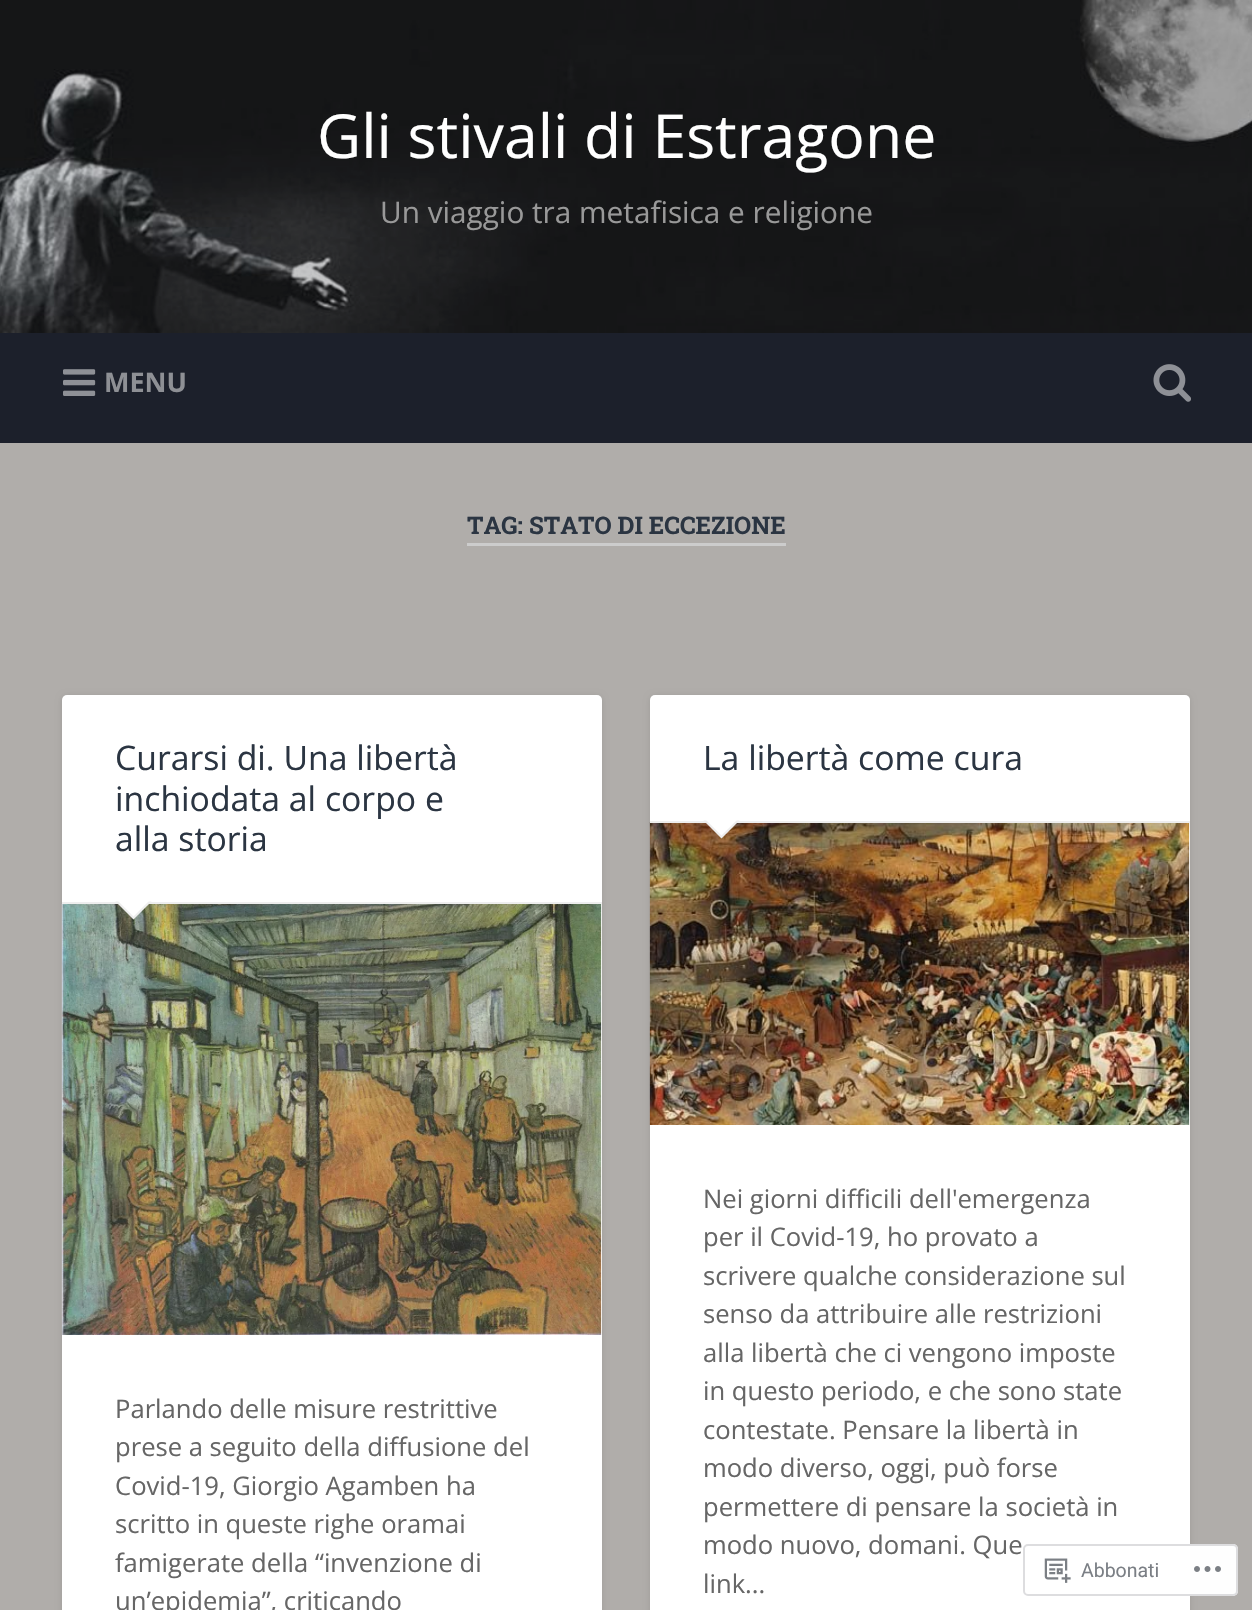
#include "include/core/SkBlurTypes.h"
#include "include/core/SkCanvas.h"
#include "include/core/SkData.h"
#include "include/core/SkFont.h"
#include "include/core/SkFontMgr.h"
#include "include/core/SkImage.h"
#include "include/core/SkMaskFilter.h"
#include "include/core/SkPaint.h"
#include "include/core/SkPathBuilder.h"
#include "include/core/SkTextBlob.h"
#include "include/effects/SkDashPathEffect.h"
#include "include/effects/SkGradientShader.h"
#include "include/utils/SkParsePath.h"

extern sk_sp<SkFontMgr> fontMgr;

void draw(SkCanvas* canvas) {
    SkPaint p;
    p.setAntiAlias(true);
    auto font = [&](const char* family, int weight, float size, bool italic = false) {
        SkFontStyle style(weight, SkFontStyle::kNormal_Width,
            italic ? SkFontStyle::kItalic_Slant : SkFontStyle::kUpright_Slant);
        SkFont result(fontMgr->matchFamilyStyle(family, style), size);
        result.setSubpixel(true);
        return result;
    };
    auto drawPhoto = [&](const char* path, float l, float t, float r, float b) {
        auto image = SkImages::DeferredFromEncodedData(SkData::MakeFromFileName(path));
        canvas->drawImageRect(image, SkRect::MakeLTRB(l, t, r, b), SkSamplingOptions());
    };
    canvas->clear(0xFFB0ADAA);
    drawPhoto("media/1.png", 0, 0, 1252, 333);
    auto font1 = font("Open Sans", 400, 60.75f);
    p.setColor(0xFFFFFFFF);
    canvas->drawString("Gli stivali di Estragone", 317, 158, font1, p);
    auto font2 = font("Open Sans", 400, 29.75f);
    p.setColor(0xFF999999);
    canvas->drawString("Un viaggio tra metafisica e religione", 380, 223, font2, p);
    p.setColor(0xFF1C202B);
    canvas->drawRect(SkRect::MakeLTRB(0, 333, 1252, 443), p);
    drawPhoto("media/2.png", 63, 369, 96, 396);
    auto font3 = font("Open Sans", 700, 27);
    p.setColor(0xFF8E9095);
    canvas->drawString("MENU", 104, 392, font3, p);
    drawPhoto("media/3.png", 1153, 364, 1191, 402);
    p.setColor(0xFFCCCCCC);
    canvas->drawRect(SkRect::MakeLTRB(467, 543, 786, 546), p);
    auto font4 = font("Roboto Slab", 700, 24.25f);
    p.setColor(0xFF2B3542);
    canvas->drawString("TAG: STATO DI ECCEZIONE", 467, 534, font4, p);
    p.setColor(0x1A000000);
    p.setMaskFilter(SkMaskFilter::MakeBlur(kNormal_SkBlurStyle, 3));
    canvas->drawRoundRect(SkRect::MakeLTRB(62, 696, 602, 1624), 5, 5, p);
    p.setMaskFilter(nullptr);
    p.setColor(0xFFFFFFFF);
    canvas->drawRoundRect(SkRect::MakeLTRB(62, 695, 602, 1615), 5, 5, p);
    drawPhoto("media/4.png", 61, 903, 602, 1335);
    p.setColor(0xFFEEEEEE);
    canvas->drawRect(SkRect::MakeLTRB(62, 902, 602, 904), p);
    auto font5 = font("Open Sans", 400, 33.75f);
    p.setColor(0xFF2B3542);
    {
        const struct { const char* s; float x, y; } items[] = {
            {"Curarsi di. Una libertà", 115, 770},
            {"inchiodata al corpo e", 115, 811},
            {"alla storia", 115, 851},
        };
        for (auto [s, x, y] : items) {
            canvas->drawString(s, x, y, font5, p);
        }
    }
    p.setColor(0xFFEEEEEE);
    canvas->drawPath(SkPathBuilder().moveTo(115.5f, 901.5f).lineTo(151.5f, 901.5f).lineTo(133.5f, 919.5f).close().detach(), p);
    p.setColor(0xFFFFFFFF);
    canvas->drawPath(SkPathBuilder().moveTo(117, 900).lineTo(150, 900).lineTo(133.5f, 916.5f).close().detach(), p);
    auto font6 = font("Open Sans", 400, 25.6f);
    p.setColor(0xFF666666);
    {
        const struct { const char* s; float x, y; } items[] = {
            {"Parlando delle misure restrittive", 115, 1418},
            {"prese a seguito della diffusione del", 115, 1456},
            {"Covid-19, Giorgio Agamben ha", 115, 1495},
            {"scritto in queste righe oramai", 115, 1533},
            {"famigerate della “invenzione di", 115, 1572},
            {"un’epidemia”, criticando", 115, 1610},
        };
        for (auto [s, x, y] : items) {
            canvas->drawString(s, x, y, font6, p);
        }
    }
    p.setColor(0x1A000000);
    p.setMaskFilter(SkMaskFilter::MakeBlur(kNormal_SkBlurStyle, 3));
    canvas->drawRoundRect(SkRect::MakeLTRB(650, 696, 1190, 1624), 5, 5, p);
    p.setMaskFilter(nullptr);
    p.setColor(0xFFFFFFFF);
    canvas->drawRoundRect(SkRect::MakeLTRB(650, 695, 1190, 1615), 5, 5, p);
    drawPhoto("media/5.png", 649, 822, 1190, 1125);
    p.setColor(0xFFEEEEEE);
    canvas->drawRect(SkRect::MakeLTRB(650, 821, 1190, 823), p);
    p.setColor(0xFF2B3542);
    canvas->drawString("La libertà come cura", 703, 770, font5, p);
    p.setColor(0xFFEEEEEE);
    canvas->drawPath(SkPathBuilder().moveTo(703.5f, 820.5f).lineTo(739.5f, 820.5f).lineTo(721.5f, 838.5f).close().detach(), p);
    p.setColor(0xFFFFFFFF);
    canvas->drawPath(SkPathBuilder().moveTo(705, 819).lineTo(738, 819).lineTo(721.5f, 835.5f).close().detach(), p);
    p.setColor(0xFF666666);
    {
        const struct { const char* s; float x, y; } items[] = {
            {"Nei giorni difficili dell'emergenza", 703, 1208},
            {"per il Covid-19, ho provato a", 703, 1246},
            {"scrivere qualche considerazione sul", 703, 1285},
            {"senso da attribuire alle restrizioni", 703, 1323},
            {"alla libertà che ci vengono imposte", 703, 1362},
            {"in questo periodo, e che sono state", 703, 1400},
            {"contestate. Pensare la libertà in", 703, 1439},
            {"modo diverso, oggi, può forse", 703, 1477},
            {"permettere di pensare la società in", 703, 1516},
            {"modo nuovo, domani. Que", 703, 1554},
            {"link...", 703, 1593},
        };
        for (auto [s, x, y] : items) {
            canvas->drawString(s, x, y, font6, p);
        }
    }
    p.setColor(0xFAFFFFFF);
    canvas->drawRoundRect(SkRect::MakeLTRB(1023, 1544, 1238, 1596), 5, 5, p);
    p.setStyle(SkPaint::kStroke_Style);
    p.setStrokeWidth(2);
    p.setColor(0xFADCDCDE);
    canvas->drawRoundRect(SkRect::MakeLTRB(1024, 1545, 1237, 1595), 4, 4, p);
    drawPhoto("media/6.png", 1044, 1558, 1071, 1583);
    auto font7 = font("Roboto", 400, 19.5f);
    p.setStyle(SkPaint::kFill_Style);
    p.setColor(0xFF7B7F85);
    canvas->drawString("Abbonati", 1081, 1577, font7, p);
    drawPhoto("media/7.png", 1194, 1566, 1221, 1572);
}
